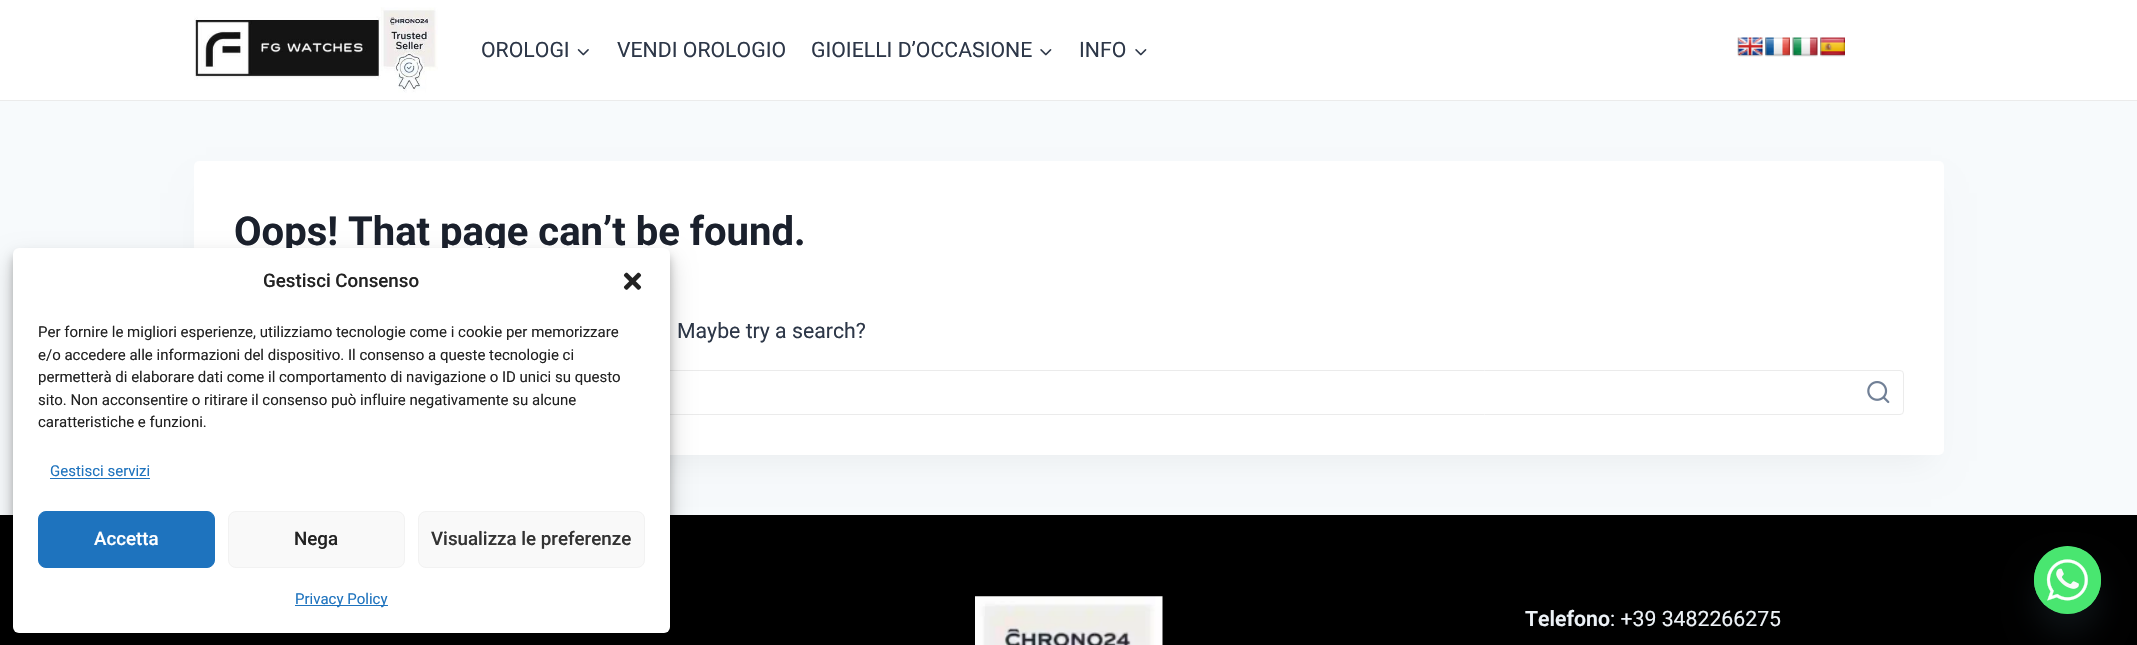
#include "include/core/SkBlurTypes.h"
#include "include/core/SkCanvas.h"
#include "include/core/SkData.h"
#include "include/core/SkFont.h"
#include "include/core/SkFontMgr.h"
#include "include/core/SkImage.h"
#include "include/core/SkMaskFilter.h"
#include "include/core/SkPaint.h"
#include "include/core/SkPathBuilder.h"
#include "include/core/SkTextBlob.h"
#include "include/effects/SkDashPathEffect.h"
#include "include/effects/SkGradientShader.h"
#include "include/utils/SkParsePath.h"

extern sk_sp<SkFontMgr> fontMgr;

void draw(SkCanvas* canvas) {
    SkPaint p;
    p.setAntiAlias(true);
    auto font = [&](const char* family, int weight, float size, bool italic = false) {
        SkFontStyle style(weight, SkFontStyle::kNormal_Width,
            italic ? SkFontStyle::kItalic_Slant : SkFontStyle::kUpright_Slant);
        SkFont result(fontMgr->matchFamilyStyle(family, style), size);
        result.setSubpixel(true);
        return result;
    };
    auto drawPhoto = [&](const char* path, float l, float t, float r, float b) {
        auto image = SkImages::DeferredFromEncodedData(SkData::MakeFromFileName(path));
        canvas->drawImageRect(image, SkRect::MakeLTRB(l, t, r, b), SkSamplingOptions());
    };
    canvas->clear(0xFFF7FAFC);
    p.setColor(0xFFFFFFFF);
    canvas->drawRect(SkRect::MakeLTRB(0, 0, 2137, 100), p);
    p.setColor(0xFFEBEBEB);
    canvas->drawRect(SkRect::MakeLTRB(0, 100, 2137, 101), p);
    drawPhoto("media/1.png", 194, 7, 438, 93);
    auto font1 = font("Roboto", 400, 21.25f);
    p.setColor(0xFF2D3748);
    canvas->drawString("OROLOGI", 481, 57, font1, p);
    drawPhoto("media/2.png", 577, 49, 589, 56);
    canvas->drawString("VENDI OROLOGIO", 617, 57, font1, p);
    canvas->drawString("GIOIELLI D’OCCASIONE", 811, 57, font1, p);
    drawPhoto("media/3.png", 1040, 49, 1052, 56);
    canvas->drawString("INFO", 1079, 57, font1, p);
    drawPhoto("media/3.png", 1135, 49, 1147, 56);
    drawPhoto("media/4.png", 1737, 37, 1763, 57);
    drawPhoto("media/5.png", 1765, 37, 1790, 57);
    drawPhoto("media/6.png", 1792, 37, 1818, 57);
    drawPhoto("media/7.png", 1820, 37, 1845, 57);
    p.setColor(0x0D000000);
    p.setMaskFilter(SkMaskFilter::MakeBlur(kNormal_SkBlurStyle, 15.5f));
    canvas->drawRect(SkRect::MakeLTRB(206, 193, 1931, 461), p);
    p.setMaskFilter(nullptr);
    p.setColor(0xFFFFFFFF);
    canvas->drawRoundRect(SkRect::MakeLTRB(194, 161, 1944, 455), 5, 5, p);
    auto font2 = font("Roboto", 700, 40);
    p.setColor(0xFF1A202C);
    canvas->drawString("Oops! That page can’t be found.", 234, 245, font2, p);
    p.setColor(0xFF2D3748);
    canvas->drawString("Maybe try a search?", 677, 338, font1, p);
    p.setStyle(SkPaint::kStroke_Style);
    p.setStrokeWidth(1);
    p.setColor(0xFFEBEBEB);
    canvas->drawRoundRect(SkRect::MakeLTRB(234.5f, 370.5f, 1903.5f, 414.5f), 3.5f, 3.5f, p);
    drawPhoto("media/8.png", 1867, 381, 1890, 404);
    p.setStyle(SkPaint::kFill_Style);
    p.setColor(0xFF000000);
    canvas->drawRect(SkRect::MakeLTRB(0, 515, 2137, 645), p);
    drawPhoto("media/9.png", 975, 596, 1163, 645);
    auto font3 = font("Roboto", 600, 21.25f);
    p.setColor(0xFFEDF2F7);
    canvas->drawString("Telefono", 1525, 626, font3, p);
    canvas->drawString(": +39 3482266275", 1610, 626, font1, p);
    p.setColor(0x3B000000);
    p.setMaskFilter(SkMaskFilter::MakeBlur(kNormal_SkBlurStyle, 4));
    canvas->drawRoundRect(SkRect::MakeLTRB(13, 255, 670, 640), 6, 6, p);
    p.setMaskFilter(nullptr);
    p.setColor(0x30000000);
    p.setMaskFilter(SkMaskFilter::MakeBlur(kNormal_SkBlurStyle, 12.5f));
    canvas->drawRoundRect(SkRect::MakeLTRB(13, 260, 670, 645), 6, 6, p);
    p.setMaskFilter(nullptr);
    p.setColor(0xFFFFFFFF);
    canvas->drawRoundRect(SkRect::MakeLTRB(13, 248, 670, 633), 6, 6, p);
    auto font4 = font("Roboto", 500, 18.75f);
    p.setColor(0xFF222222);
    canvas->drawString("Gestisci Consenso", 263, 287, font4, p);
    drawPhoto("media/10.png", 623, 272, 642, 290);
    auto font5 = font("Roboto", 400, 15);
    {
        const struct { const char* s; float x, y; } items[] = {
            {"Per fornire le migliori esperienze, utilizziamo tecnologie come i cookie per memorizzare", 38, 337},
            {"e/o accedere alle informazioni del dispositivo. Il consenso a queste tecnologie ci", 38, 360},
            {"permetterà di elaborare dati come il comportamento di navigazione o ID unici su questo", 38, 382},
            {"sito. Non acconsentire o ritirare il consenso può influire negativamente su alcune", 38, 405},
            {"caratteristiche e funzioni.", 38, 427},
        };
        for (auto [s, x, y] : items) {
            canvas->drawString(s, x, y, font5, p);
        }
    }
    p.setColor(0xFF1E73BE);
    canvas->drawString("Gestisci servizi", 50, 476, font5, p);
    canvas->drawRect(SkRect::MakeLTRB(50, 478, 150, 479), p);
    canvas->drawRoundRect(SkRect::MakeLTRB(38.5f, 511.5f, 214.5f, 567.5f), 7.5f, 7.5f, p);
    p.setStyle(SkPaint::kStroke_Style);
    canvas->drawRoundRect(SkRect::MakeLTRB(38.5f, 511.5f, 214.5f, 567.5f), 7.5f, 7.5f, p);
    p.setStyle(SkPaint::kFill_Style);
    p.setColor(0xFFFFFFFF);
    canvas->drawString("Accetta", 94, 545, font4, p);
    p.setColor(0xFFF9F9F9);
    canvas->drawRoundRect(SkRect::MakeLTRB(228.5f, 511.5f, 404.5f, 567.5f), 7.5f, 7.5f, p);
    p.setStyle(SkPaint::kStroke_Style);
    p.setColor(0xFFF2F2F2);
    canvas->drawRoundRect(SkRect::MakeLTRB(228.5f, 511.5f, 404.5f, 567.5f), 7.5f, 7.5f, p);
    p.setStyle(SkPaint::kFill_Style);
    p.setColor(0xFF222222);
    canvas->drawString("Nega", 294, 545, font4, p);
    p.setColor(0xFFF9F9F9);
    canvas->drawRoundRect(SkRect::MakeLTRB(418.5f, 511.5f, 644.5f, 567.5f), 7.5f, 7.5f, p);
    p.setStyle(SkPaint::kStroke_Style);
    p.setColor(0xFFF2F2F2);
    canvas->drawRoundRect(SkRect::MakeLTRB(418.5f, 511.5f, 644.5f, 567.5f), 7.5f, 7.5f, p);
    p.setStyle(SkPaint::kFill_Style);
    p.setColor(0xFF333333);
    canvas->drawString("Visualizza le preferenze", 431, 545, font4, p);
    p.setColor(0xFF1E73BE);
    canvas->drawRect(SkRect::MakeLTRB(295, 605, 388, 606), p);
    canvas->drawString("Privacy Policy", 295, 604, font5, p);
    p.setColor(0x2949687E);
    p.setMaskFilter(SkMaskFilter::MakeBlur(kNormal_SkBlurStyle, 15));
    canvas->drawRoundRect(SkRect::MakeLTRB(2034, 566, 2101, 634), 33.5f, 33.5f, p);
    p.setMaskFilter(nullptr);
    p.setColor(0xFF49E670);
    canvas->drawRoundRect(SkRect::MakeLTRB(2034, 546, 2101, 614), 33.5f, 33.5f, p);
    drawPhoto("media/11.png", 2034, 546, 2101, 614);
}
